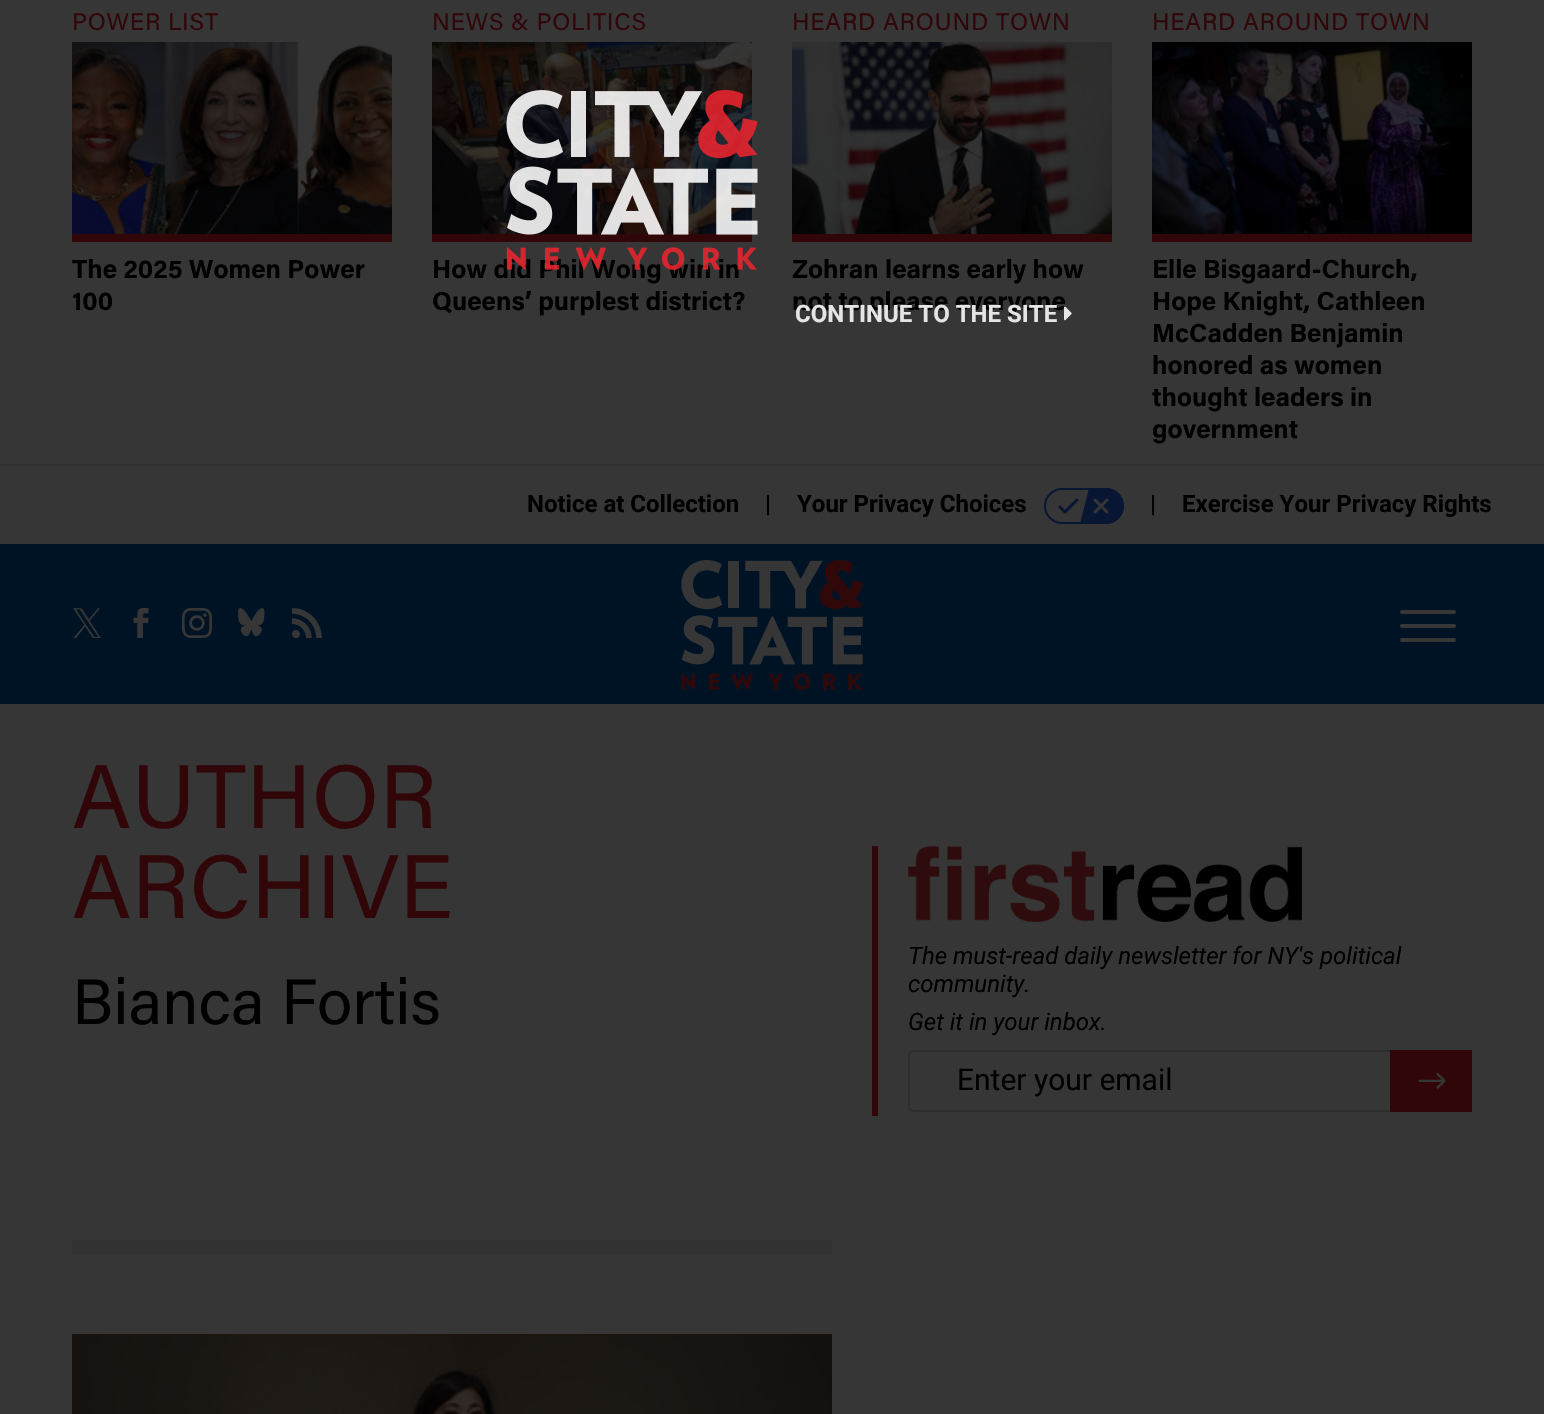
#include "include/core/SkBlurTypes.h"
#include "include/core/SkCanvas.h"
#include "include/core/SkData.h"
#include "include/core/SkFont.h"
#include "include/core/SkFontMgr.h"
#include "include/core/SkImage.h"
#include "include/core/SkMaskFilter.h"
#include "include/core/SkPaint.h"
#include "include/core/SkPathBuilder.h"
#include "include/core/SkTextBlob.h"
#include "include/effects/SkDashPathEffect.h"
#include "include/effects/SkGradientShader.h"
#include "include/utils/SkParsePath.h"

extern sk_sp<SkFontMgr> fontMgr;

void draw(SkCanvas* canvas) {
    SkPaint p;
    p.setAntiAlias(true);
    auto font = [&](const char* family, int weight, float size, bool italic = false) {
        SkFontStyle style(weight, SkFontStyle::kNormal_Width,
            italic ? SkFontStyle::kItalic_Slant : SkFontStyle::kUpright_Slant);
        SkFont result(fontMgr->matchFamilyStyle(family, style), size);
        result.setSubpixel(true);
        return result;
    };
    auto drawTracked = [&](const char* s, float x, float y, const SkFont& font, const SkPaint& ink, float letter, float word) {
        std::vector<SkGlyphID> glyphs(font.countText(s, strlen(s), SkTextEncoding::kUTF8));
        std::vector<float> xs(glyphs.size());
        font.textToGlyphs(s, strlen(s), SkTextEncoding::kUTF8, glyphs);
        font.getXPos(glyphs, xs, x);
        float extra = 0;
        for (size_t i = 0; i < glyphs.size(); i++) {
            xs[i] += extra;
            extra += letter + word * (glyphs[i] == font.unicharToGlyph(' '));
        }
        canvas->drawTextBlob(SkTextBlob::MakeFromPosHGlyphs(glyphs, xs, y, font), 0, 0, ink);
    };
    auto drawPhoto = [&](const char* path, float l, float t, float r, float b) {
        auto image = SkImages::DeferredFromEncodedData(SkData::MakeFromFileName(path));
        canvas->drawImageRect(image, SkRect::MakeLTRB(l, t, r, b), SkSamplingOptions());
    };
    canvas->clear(0xFF363636);
    auto font1 = font("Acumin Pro", 400, 24);
    p.setColor(0xFF310609);
    drawTracked("POWER LIST", 72, 30, font1, p, 0.75f, 0);
    canvas->drawRect(SkRect::MakeLTRB(72, 234, 392, 242), p);
    drawPhoto("media/1.png", 72, 42, 392, 234);
    auto font2 = font("Acumin Pro", 700, 26);
    p.setColor(0xFF000000);
    canvas->drawString("The 2025 Women Power", 72, 278, font2, p);
    canvas->drawString("100", 72, 310, font2, p);
    p.setColor(0xFF310609);
    drawTracked("NEWS & POLITICS", 432, 30, font1, p, 0.75f, 0);
    canvas->drawRect(SkRect::MakeLTRB(432, 234, 752, 242), p);
    drawPhoto("media/2.png", 432, 42, 752, 234);
    p.setColor(0xFF000000);
    canvas->drawString("How did Phil Wong win in", 432, 278, font2, p);
    canvas->drawString("Queens’ purplest district?", 432, 310, font2, p);
    p.setColor(0xFF310609);
    drawTracked("HEARD AROUND TOWN", 792, 30, font1, p, 0.75f, 0);
    canvas->drawRect(SkRect::MakeLTRB(792, 234, 1112, 242), p);
    drawPhoto("media/3.png", 792, 42, 1112, 234);
    p.setColor(0xFF000000);
    canvas->drawString("Zohran learns early how", 792, 278, font2, p);
    canvas->drawString("not to please everyone", 792, 310, font2, p);
    p.setColor(0xFF310609);
    drawTracked("HEARD AROUND TOWN", 1152, 30, font1, p, 0.75f, 0);
    canvas->drawRect(SkRect::MakeLTRB(1152, 234, 1472, 242), p);
    drawPhoto("media/4.png", 1152, 42, 1472, 234);
    p.setColor(0xFF000000);
    {
        const struct { const char* s; float x, y; } items[] = {
            {"Elle Bisgaard-Church,", 1152, 278},
            {"Hope Knight, Cathleen", 1152, 310},
            {"McCadden Benjamin", 1152, 342},
            {"honored as women", 1152, 374},
            {"thought leaders in", 1152, 406},
            {"government", 1152, 438},
        };
        for (auto [s, x, y] : items) {
            canvas->drawString(s, x, y, font2, p);
        }
    }
    drawPhoto("media/5.png", 506, 90, 758, 270);
    auto font3 = font("Roboto", 700, 24);
    p.setColor(0xFFE5E5E5);
    canvas->drawString("CONTINUE TO THE SITE", 795, 322, font3, p);
    drawPhoto("media/6.png", 1064, 306, 1072, 321);
    p.setColor(0xFF2E2E2E);
    canvas->drawRect(SkRect::MakeLTRB(0, 464, 1544, 466), p);
    p.setColor(0xFF000000);
    {
        const struct { const char* s; float x, y; } items[] = {
            {"Notice at Collection", 527, 512},
            {"|", 765, 512},
            {"Your Privacy Choices", 797, 512},
        };
        for (auto [s, x, y] : items) {
            canvas->drawString(s, x, y, font3, p);
        }
    }
    drawPhoto("media/7.png", 1044, 488, 1124, 524);
    canvas->drawString("|", 1150, 512, font3, p);
    canvas->drawString("Exercise Your Privacy Rights", 1182, 512, font3, p);
    p.setColor(0xFF001324);
    canvas->drawRect(SkRect::MakeLTRB(0, 544, 1544, 704), p);
    drawPhoto("media/8.png", 73, 608, 101, 638);
    drawPhoto("media/9.png", 133, 608, 149, 638);
    drawPhoto("media/10.png", 182, 608, 212, 638);
    drawPhoto("media/11.png", 238, 608, 265, 637);
    drawPhoto("media/12.png", 292, 608, 322, 638);
    drawPhoto("media/13.png", 681, 560, 863, 690);
    p.setColor(0xFF363636);
    canvas->drawRoundRect(SkRect::MakeLTRB(1400, 624, 1456, 628), 2, 2, p);
    canvas->drawRoundRect(SkRect::MakeLTRB(1400, 610, 1456, 614), 2, 2, p);
    canvas->drawRoundRect(SkRect::MakeLTRB(1400, 638, 1456, 642), 2, 2, p);
    auto font4 = font("Acumin Pro", 400, 90);
    p.setColor(0xFF310609);
    canvas->drawString("AUTHOR", 72, 828, font4, p);
    canvas->drawString("ARCHIVE", 72, 918, font4, p);
    auto font5 = font("Acumin Pro", 400, 64);
    p.setColor(0xFF000000);
    canvas->drawString("Bianca Fortis", 72, 1024, font5, p);
    p.setColor(0xFF323232);
    canvas->drawRect(SkRect::MakeLTRB(72, 1240, 832, 1254), p);
    drawPhoto("media/14.png", 72, 1334, 832, 1414);
    p.setColor(0xFF310609);
    canvas->drawRect(SkRect::MakeLTRB(872, 846, 878, 1116), p);
    drawPhoto("media/15.png", 908, 846, 1302, 922);
    auto font6 = font("Roboto", 400, 24, true);
    p.setColor(0xFF000000);
    {
        const struct { const char* s; float x, y; } items[] = {
            {"The must-read daily newsletter for NY's political", 908, 964},
            {"community.", 908, 992},
            {"Get it in your inbox.", 908, 1030},
        };
        for (auto [s, x, y] : items) {
            canvas->drawString(s, x, y, font6, p);
        }
    }
    p.setStyle(SkPaint::kStroke_Style);
    p.setStrokeWidth(2);
    p.setColor(0xFF2B2D2E);
    canvas->drawPath(SkPathBuilder().moveTo(914, 1051).lineTo(1391, 1051).lineTo(1391, 1111).lineTo(914, 1111).cubicTo(911, 1111, 909, 1109, 909, 1106).lineTo(909, 1056).cubicTo(909, 1053, 911, 1051, 914, 1051).close().detach(), p);
    auto font7 = font("Roboto", 400, 30);
    p.setStyle(SkPaint::kFill_Style);
    p.setColor(0xFF000000);
    canvas->drawString("Enter your email", 957, 1090, font7, p);
    p.setColor(0xFF310609);
    canvas->drawRect(SkRect::MakeLTRB(1390, 1050, 1472, 1112), p);
    drawPhoto("media/16.png", 1418, 1073, 1446, 1089);
}
